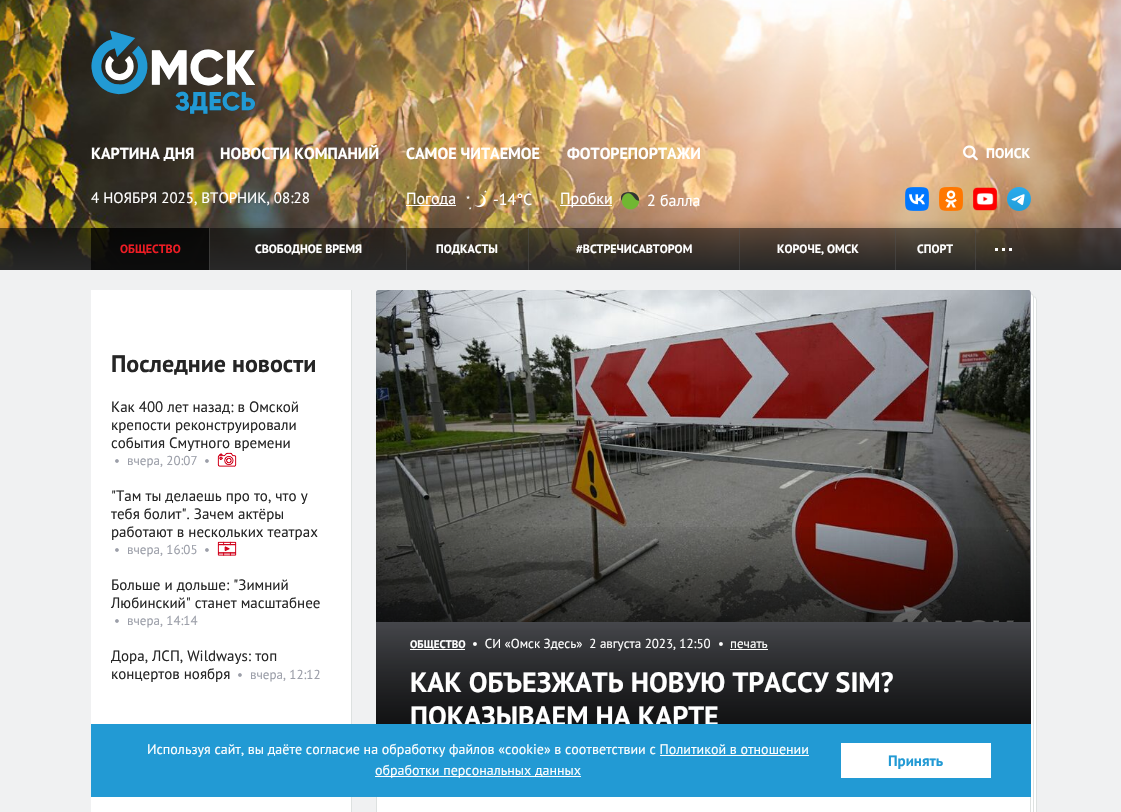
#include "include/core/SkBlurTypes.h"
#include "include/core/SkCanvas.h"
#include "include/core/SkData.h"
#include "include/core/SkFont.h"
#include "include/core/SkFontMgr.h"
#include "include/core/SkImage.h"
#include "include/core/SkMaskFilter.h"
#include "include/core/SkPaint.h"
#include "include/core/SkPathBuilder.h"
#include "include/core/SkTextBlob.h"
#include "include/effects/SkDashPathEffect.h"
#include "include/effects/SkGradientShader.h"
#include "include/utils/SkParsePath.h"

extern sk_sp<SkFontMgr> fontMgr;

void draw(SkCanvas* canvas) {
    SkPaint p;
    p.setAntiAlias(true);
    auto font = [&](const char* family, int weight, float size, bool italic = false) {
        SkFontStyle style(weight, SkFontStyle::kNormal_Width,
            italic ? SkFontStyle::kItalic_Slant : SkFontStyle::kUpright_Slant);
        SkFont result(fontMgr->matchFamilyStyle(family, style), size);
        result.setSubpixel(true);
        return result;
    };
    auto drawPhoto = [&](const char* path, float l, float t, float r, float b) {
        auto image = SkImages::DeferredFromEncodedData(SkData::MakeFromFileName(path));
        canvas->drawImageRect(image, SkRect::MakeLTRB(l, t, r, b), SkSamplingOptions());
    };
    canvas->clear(0xFFF0F1F2);
    drawPhoto("media/1.png", 0, 0, 1121, 270);
    drawPhoto("media/2.png", 91, 30, 255, 114);
    auto font1 = font("PT Sans", 700, 16);
    p.setColor(0xFFFFFFFF);
    {
        const struct { const char* s; float x, y; } items[] = {
            {"КАРТИНА ДНЯ", 91, 159},
            {"НОВОСТИ КОМПАНИЙ", 220, 159},
            {"САМОЕ ЧИТАЕМОЕ", 406, 159},
            {"ФОТОРЕПОРТАЖИ", 567, 159},
        };
        for (auto [s, x, y] : items) {
            canvas->drawString(s, x, y, font1, p);
        }
    }
    drawPhoto("media/3.png", 963, 145, 978, 161);
    auto font2 = font("PT Sans", 700, 14);
    canvas->drawString("ПОИСК", 986, 158, font2, p);
    auto font3 = font("PT Sans", 400, 15);
    canvas->drawString("4 НОЯБРЯ 2025, ВТОРНИК, 08:28", 91, 203, font3, p);
    canvas->drawRect(SkRect::MakeLTRB(406, 205, 456, 206), p);
    auto font4 = font("PT Sans", 400, 16);
    canvas->drawString("Погода", 406, 204, font4, p);
    drawPhoto("media/4.png", 466, 190, 487, 210);
    canvas->drawString("-14°C", 493, 205, font4, p);
    canvas->drawRect(SkRect::MakeLTRB(560, 205, 612, 206), p);
    canvas->drawString("Пробки", 560, 204, font4, p);
    drawPhoto("media/5.png", 620, 192, 640, 210);
    canvas->drawString("2 балла", 647, 206, font4, p);
    drawPhoto("media/6.png", 905, 187, 929, 211);
    drawPhoto("media/7.png", 939, 187, 963, 211);
    drawPhoto("media/8.png", 973, 187, 997, 211);
    drawPhoto("media/9.png", 1007, 187, 1031, 211);
    p.setColor(0x80000000);
    canvas->drawRect(SkRect::MakeLTRB(0, 228, 1121, 270), p);
    p.setColor(0xB3000000);
    canvas->drawRect(SkRect::MakeLTRB(91, 228, 209, 270), p);
    auto font5 = font("PT Sans", 700, 12);
    p.setColor(0xFFED1C24);
    canvas->drawString("ОБЩЕСТВО", 120, 253, font5, p);
    p.setColor(0x804F4F4F);
    canvas->drawRect(SkRect::MakeLTRB(209, 228, 210, 270), p);
    p.setColor(0xFFFFFFFF);
    canvas->drawString("СВОБОДНОЕ ВРЕМЯ", 255, 253, font5, p);
    p.setColor(0x804F4F4F);
    canvas->drawRect(SkRect::MakeLTRB(406, 228, 407, 270), p);
    p.setColor(0xFFFFFFFF);
    canvas->drawString("ПОДКАСТЫ", 436, 253, font5, p);
    p.setColor(0x804F4F4F);
    canvas->drawRect(SkRect::MakeLTRB(528, 228, 529, 270), p);
    p.setColor(0xFFFFFFFF);
    canvas->drawString("#ВСТРЕЧИСАВТОРОМ", 576, 253, font5, p);
    p.setColor(0x804F4F4F);
    canvas->drawRect(SkRect::MakeLTRB(739, 228, 740, 270), p);
    p.setColor(0xFFFFFFFF);
    canvas->drawString("КОРОЧЕ, ОМСК", 777, 253, font5, p);
    p.setColor(0x804F4F4F);
    canvas->drawRect(SkRect::MakeLTRB(895, 228, 896, 270), p);
    p.setColor(0xFFFFFFFF);
    canvas->drawString("СПОРТ", 917, 253, font5, p);
    {
        const struct { float l, t, r, b; SkColor color; } items[] = {
            {975, 228, 976, 270, 0x804F4F4F},
            {995, 248, 998, 251, 0xFFFFFFFF},
            {1002, 248, 1005, 251, 0xFFFFFFFF},
            {1009, 248, 1012, 251, 0xFFFFFFFF},
            {91, 290, 351, 812, 0xFFFFFFFF},
            {351, 290, 352, 812, 0xFFDDE1E0},
        };
        for (auto [l, t, r, b, color] : items) {
            p.setColor(color);
            canvas->drawRect(SkRect::MakeLTRB(l, t, r, b), p);
        }
    }
    auto font6 = font("PT Sans", 700, 24);
    p.setColor(0xFF252525);
    canvas->drawString("Последние новости", 111, 372, font6, p);
    {
        const struct { const char* s; float x, y; } items[] = {
            {"Как 400 лет назад: в Омской", 111, 412},
            {"крепости реконструировали", 111, 430},
            {"события Смутного времени", 111, 448},
        };
        for (auto [s, x, y] : items) {
            canvas->drawString(s, x, y, font3, p);
        }
    }
    auto font7 = font("PT Sans", 400, 13);
    p.setColor(0xFF9C9FA9);
    {
        const struct { const char* s; float x, y; } items[] = {
            {"•", 114, 465},
            {"вчера, 20:07", 127, 465},
            {"•", 204, 465},
        };
        for (auto [s, x, y] : items) {
            canvas->drawString(s, x, y, font7, p);
        }
    }
    drawPhoto("media/10.png", 217, 452, 237, 467);
    p.setColor(0xFF252525);
    {
        const struct { const char* s; float x, y; } items[] = {
            {"\"Там ты делаешь про то, что у", 111, 501},
            {"тебя болит\". Зачем актёры", 111, 519},
            {"работают в нескольких театрах", 111, 537},
        };
        for (auto [s, x, y] : items) {
            canvas->drawString(s, x, y, font3, p);
        }
    }
    p.setColor(0xFF9C9FA9);
    {
        const struct { const char* s; float x, y; } items[] = {
            {"•", 114, 554},
            {"вчера, 16:05", 127, 554},
            {"•", 204, 554},
        };
        for (auto [s, x, y] : items) {
            canvas->drawString(s, x, y, font7, p);
        }
    }
    drawPhoto("media/11.png", 217, 541, 237, 556);
    p.setColor(0xFF252525);
    canvas->drawString("Больше и дольше: \"Зимний", 111, 590, font3, p);
    canvas->drawString("Любинский\" станет масштабнее", 111, 608, font3, p);
    p.setColor(0xFF9C9FA9);
    canvas->drawString("•", 114, 625, font7, p);
    canvas->drawString("вчера, 14:14", 127, 625, font7, p);
    p.setColor(0xFF252525);
    canvas->drawString("Дора, ЛСП, Wildways: топ", 111, 661, font3, p);
    canvas->drawString("концертов ноября", 111, 679, font3, p);
    p.setColor(0xFF9C9FA9);
    canvas->drawString("•", 237, 679, font7, p);
    canvas->drawString("вчера, 12:12", 250, 679, font7, p);
    p.setColor(0xFFFFFFFF);
    canvas->drawRoundRect(SkRect::MakeLTRB(382.5f, 296.5f, 1036.5f, 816.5f), 3.5f, 3.5f, p);
    p.setStyle(SkPaint::kStroke_Style);
    p.setStrokeWidth(1);
    p.setColor(0xFFDDE1E0);
    canvas->drawRoundRect(SkRect::MakeLTRB(382.5f, 296.5f, 1036.5f, 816.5f), 3.5f, 3.5f, p);
    p.setStyle(SkPaint::kFill_Style);
    p.setColor(0xFFFFFFFF);
    canvas->drawRoundRect(SkRect::MakeLTRB(379.5f, 293.5f, 1033.5f, 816.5f), 3.5f, 3.5f, p);
    p.setStyle(SkPaint::kStroke_Style);
    p.setColor(0xFFDDE1E0);
    canvas->drawRoundRect(SkRect::MakeLTRB(379.5f, 293.5f, 1033.5f, 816.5f), 3.5f, 3.5f, p);
    p.setStyle(SkPaint::kFill_Style);
    p.setColor(0xFFFFFFFF);
    canvas->drawRoundRect(SkRect::MakeLTRB(376.5f, 290.5f, 1030.5f, 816.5f), 3.5f, 3.5f, p);
    p.setStyle(SkPaint::kStroke_Style);
    p.setColor(0xFFDDE1E0);
    canvas->drawRoundRect(SkRect::MakeLTRB(376.5f, 290.5f, 1030.5f, 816.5f), 3.5f, 3.5f, p);
    p.setStyle(SkPaint::kFill_Style);
    p.setColor(0xFF9C9FA9);
    canvas->drawPath(SkPathBuilder().moveTo(379, 290).lineTo(1028, 290).cubicTo(1029.5f, 290, 1031, 291.5f, 1031, 293).lineTo(1031, 750).lineTo(376, 750).lineTo(376, 293).cubicTo(376, 291.5f, 377.5f, 290, 379, 290).close().detach(), p);
    drawPhoto("media/12.png", 376, 290, 1030, 622);
    {
        const SkColor colors[] = {0x00000000, 0xBF000000};
        const float stops[] = {0, 1};
        const SkPoint ends[] = {{704, 520}, {704, 750}};
        p.setShader(SkGradientShader::MakeLinear(ends, colors, stops, 2, SkTileMode::kClamp));
        p.setAlpha(255);
    }
    canvas->drawRect(SkRect::MakeLTRB(376, 527, 1031, 724), p);
    canvas->drawRect(SkRect::MakeLTRB(376, 527, 1031, 724), p);
    p.setShader(nullptr);
    p.setColor(0xFFFFFFFF);
    canvas->drawRect(SkRect::MakeLTRB(410, 649, 465, 650), p);
    auto font8 = font("PT Sans", 700, 11);
    canvas->drawString("ОБЩЕСТВО", 410, 648, font8, p);
    {
        const struct { const char* s; float x, y; } items[] = {
            {"•  СИ «Омск Здесь»  2 августа 2023, 12:50", 472, 648},
            {"•", 718, 648},
            {"печать", 730, 648},
        };
        for (auto [s, x, y] : items) {
            canvas->drawString(s, x, y, font7, p);
        }
    }
    canvas->drawRect(SkRect::MakeLTRB(730, 649, 768, 650), p);
    auto font9 = font("PT Sans", 700, 28);
    canvas->drawString("КАК ОБЪЕЗЖАТЬ НОВУЮ ТРАССУ SIM?", 410, 692, font9, p);
    canvas->drawString("ПОКАЗЫВАЕМ НА КАРТЕ", 410, 726, font9, p);
    p.setColor(0xFF229AD4);
    canvas->drawRect(SkRect::MakeLTRB(91, 724, 1031, 797), p);
    auto font10 = font("PT Sans", 400, 14);
    p.setColor(0xFFFFFFFF);
    canvas->drawString("Используя сайт, вы даёте согласие на обработку файлов «cookie» в соответствии с Политикой в отношении", 147, 754, font10, p);
    canvas->drawRect(SkRect::MakeLTRB(375, 776, 581, 777), p);
    canvas->drawString("обработки персональных данных", 375, 775, font10, p);
    canvas->drawRect(SkRect::MakeLTRB(660, 755, 809, 756), p);
    canvas->drawRect(SkRect::MakeLTRB(841, 743, 991, 778), p);
    auto font11 = font("PT Sans", 700, 15);
    p.setColor(0xFF229AD4);
    canvas->drawString("Принять", 888, 766, font11, p);
}
